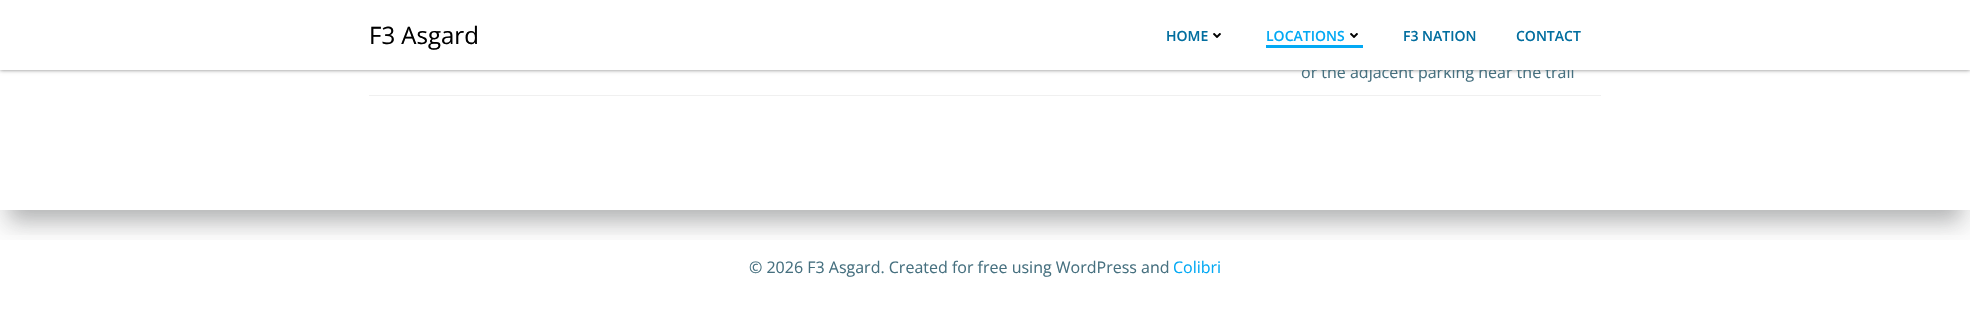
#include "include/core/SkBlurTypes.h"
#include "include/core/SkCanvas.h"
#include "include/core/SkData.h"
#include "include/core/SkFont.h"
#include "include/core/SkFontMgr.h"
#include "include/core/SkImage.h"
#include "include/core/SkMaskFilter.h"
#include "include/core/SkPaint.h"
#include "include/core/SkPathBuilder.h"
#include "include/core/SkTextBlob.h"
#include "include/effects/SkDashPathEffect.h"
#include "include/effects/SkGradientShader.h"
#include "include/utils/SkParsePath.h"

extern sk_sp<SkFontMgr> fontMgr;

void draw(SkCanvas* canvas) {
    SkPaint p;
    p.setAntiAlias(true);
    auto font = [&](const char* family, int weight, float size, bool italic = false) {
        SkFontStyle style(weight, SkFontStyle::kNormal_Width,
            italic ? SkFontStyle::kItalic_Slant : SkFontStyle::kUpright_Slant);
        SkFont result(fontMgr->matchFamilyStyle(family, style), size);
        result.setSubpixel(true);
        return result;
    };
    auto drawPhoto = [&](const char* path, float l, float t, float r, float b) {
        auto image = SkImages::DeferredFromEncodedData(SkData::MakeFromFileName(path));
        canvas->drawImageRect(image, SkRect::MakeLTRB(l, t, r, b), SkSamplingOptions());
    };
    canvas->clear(0xFFFFFFFF);
    p.setColor(0x80000000);
    p.setMaskFilter(SkMaskFilter::MakeBlur(kNormal_SkBlurStyle, 2));
    canvas->drawRect(SkRect::MakeLTRB(0, 0, 1970, 70), p);
    p.setMaskFilter(nullptr);
    canvas->save();
    canvas->clipRect(SkRect::MakeLTRB(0, 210, 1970, 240));
    p.setColor(0x14000000);
    p.setMaskFilter(SkMaskFilter::MakeBlur(kNormal_SkBlurStyle, 15));
    canvas->drawRect(SkRect::MakeLTRB(0, -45, 1970, 230), p);
    p.setMaskFilter(nullptr);
    canvas->restore();
    canvas->save();
    canvas->clipRect(SkRect::MakeLTRB(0, 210, 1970, 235));
    p.setColor(0x4D313439);
    p.setMaskFilter(SkMaskFilter::MakeBlur(kNormal_SkBlurStyle, 10));
    canvas->drawRect(SkRect::MakeLTRB(10, -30, 1960, 220), p);
    p.setMaskFilter(nullptr);
    canvas->restore();
    auto font1 = font("Open Sans", 400, 16);
    p.setColor(0xFF46707F);
    canvas->drawString("or the adjacent parking near the trail", 1301, 78, font1, p);
    p.setColor(0xFFFFFFFF);
    canvas->drawRect(SkRect::MakeLTRB(0, 0, 1970, 70), p);
    auto font2 = font("Open Sans", 400, 24);
    p.setColor(0xFF000000);
    canvas->drawString("F3 Asgard", 369, 44, font2, p);
    auto font3 = font("Open Sans", 600, 14);
    p.setColor(0xFF026E9F);
    canvas->drawString("HOME", 1166, 41, font3, p);
    drawPhoto("media/1.png", 1213, 33, 1221, 38);
    p.setColor(0xFF03A9F4);
    canvas->drawString("LOCATIONS", 1266, 41, font3, p);
    drawPhoto("media/1.png", 1350, 33, 1358, 38);
    canvas->drawRect(SkRect::MakeLTRB(1266, 45, 1363, 48), p);
    p.setColor(0xFF026E9F);
    canvas->drawString("F3 NATION", 1403, 41, font3, p);
    canvas->drawString("CONTACT", 1516, 41, font3, p);
    p.setColor(0xFFF0F0F0);
    canvas->drawRect(SkRect::MakeLTRB(369, 95, 1601, 96), p);
    p.setColor(0xFF46707F);
    canvas->drawString("© 2026 F3 Asgard. Created for free using WordPress and", 749, 273, font1, p);
    p.setColor(0xFF03A9F4);
    canvas->drawString("Colibri", 1173, 273, font1, p);
}
